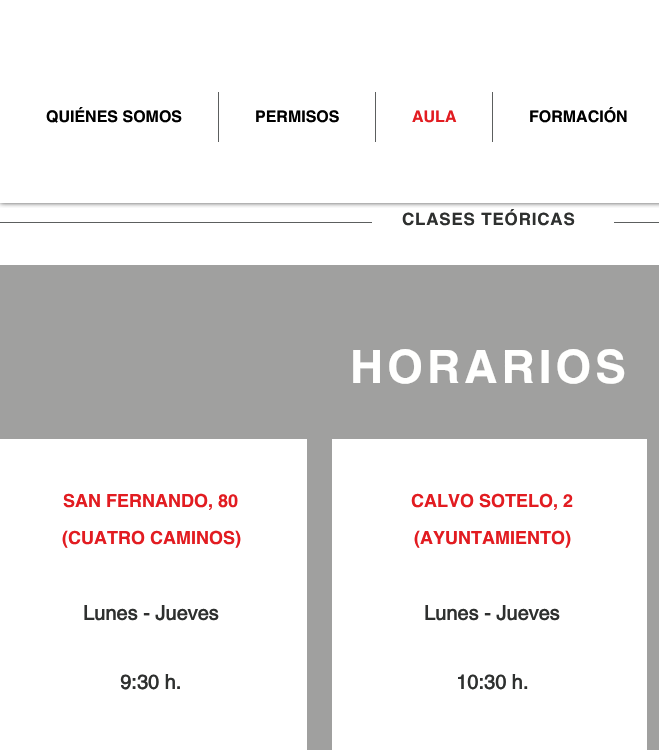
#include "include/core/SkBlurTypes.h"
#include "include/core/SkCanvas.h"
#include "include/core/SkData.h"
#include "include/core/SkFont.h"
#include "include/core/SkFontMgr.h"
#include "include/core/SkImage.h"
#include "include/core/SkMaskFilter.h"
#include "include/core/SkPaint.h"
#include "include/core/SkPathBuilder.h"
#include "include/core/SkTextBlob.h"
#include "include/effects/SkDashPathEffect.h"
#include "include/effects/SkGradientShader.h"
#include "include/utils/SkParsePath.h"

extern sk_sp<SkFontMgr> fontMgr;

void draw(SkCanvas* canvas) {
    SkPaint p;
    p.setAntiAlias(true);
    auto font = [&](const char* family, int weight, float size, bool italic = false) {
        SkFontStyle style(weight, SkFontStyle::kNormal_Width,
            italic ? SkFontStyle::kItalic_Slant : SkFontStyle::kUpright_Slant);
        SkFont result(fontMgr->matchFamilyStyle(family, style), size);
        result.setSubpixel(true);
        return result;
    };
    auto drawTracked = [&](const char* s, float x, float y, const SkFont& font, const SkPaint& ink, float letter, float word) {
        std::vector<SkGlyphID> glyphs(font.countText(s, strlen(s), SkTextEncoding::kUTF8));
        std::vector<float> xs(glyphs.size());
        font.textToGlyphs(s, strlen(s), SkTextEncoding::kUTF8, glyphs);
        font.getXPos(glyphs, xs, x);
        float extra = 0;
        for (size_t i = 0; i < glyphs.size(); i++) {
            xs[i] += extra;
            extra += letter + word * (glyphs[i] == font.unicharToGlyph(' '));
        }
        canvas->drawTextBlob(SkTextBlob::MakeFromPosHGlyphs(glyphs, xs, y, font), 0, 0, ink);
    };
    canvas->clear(0xFFFFFFFF);
    canvas->save();
    canvas->clipRect(SkRect::MakeLTRB(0, 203, 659, 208));
    p.setColor(0xB3000000);
    p.setMaskFilter(SkMaskFilter::MakeBlur(kNormal_SkBlurStyle, 2.5f));
    canvas->drawRect(SkRect::MakeLTRB(0, 0, 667, 203), p);
    p.setMaskFilter(nullptr);
    canvas->restore();
    auto font1 = font("helvetica", 700, 16);
    p.setColor(0xFF000000);
    canvas->drawString("QUIÉNES SOMOS", 46, 122, font1, p);
    p.setColor(0xFF5C5F5E);
    canvas->drawRect(SkRect::MakeLTRB(218, 92, 219, 142), p);
    p.setColor(0xFF000000);
    canvas->drawString("PERMISOS", 255, 122, font1, p);
    p.setColor(0xFF5C5F5E);
    canvas->drawRect(SkRect::MakeLTRB(375, 92, 376, 142), p);
    p.setColor(0xFFE21C21);
    canvas->drawString("AULA", 412, 122, font1, p);
    p.setColor(0xFF5C5F5E);
    canvas->drawRect(SkRect::MakeLTRB(492, 92, 493, 142), p);
    p.setColor(0xFF000000);
    canvas->drawString("FORMACIÓN", 529, 122, font1, p);
    p.setColor(0xFF5C5F5E);
    canvas->drawRect(SkRect::MakeLTRB(0, 222, 372, 223), p);
    auto font2 = font("helvetica", 700, 17);
    p.setColor(0xFF2E302F);
    drawTracked("CLASES TEÓRICAS", 402, 225, font2, p, 0.8f, 0);
    p.setColor(0xFF5C5F5E);
    canvas->drawRect(SkRect::MakeLTRB(614, 222, 659, 223), p);
    p.setColor(0xFFA0A09F);
    canvas->drawRect(SkRect::MakeLTRB(0, 265, 659, 750), p);
    auto font3 = font("helvetica", 700, 46);
    p.setColor(0xFFFFFFFE);
    drawTracked("HORARIOS", 350, 383, font3, p, 4, 0);
    p.setColor(0xFFFFFFFF);
    canvas->drawRect(SkRect::MakeLTRB(0, 439, 307, 750), p);
    auto font4 = font("helvetica", 700, 18);
    p.setColor(0xFFE21C21);
    canvas->drawString("SAN FERNANDO, 80", 63, 507, font4, p);
    canvas->drawString("(CUATRO CAMINOS)", 62, 544, font4, p);
    auto font5 = font("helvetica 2", 700, 20);
    p.setColor(0xFF2E302F);
    canvas->drawString("Lunes - Jueves", 83, 620, font5, p);
    canvas->drawString("9:30 h.", 120, 689, font5, p);
    p.setColor(0xFFFFFFFF);
    canvas->drawRect(SkRect::MakeLTRB(332, 439, 647, 750), p);
    p.setColor(0xFFE21C21);
    canvas->drawString("CALVO SOTELO, 2", 411, 507, font4, p);
    canvas->drawString("(AYUNTAMIENTO)", 414, 544, font4, p);
    p.setColor(0xFF2E302F);
    canvas->drawString("Lunes - Jueves", 424, 620, font5, p);
    canvas->drawString("10:30 h.", 456, 689, font5, p);
}
